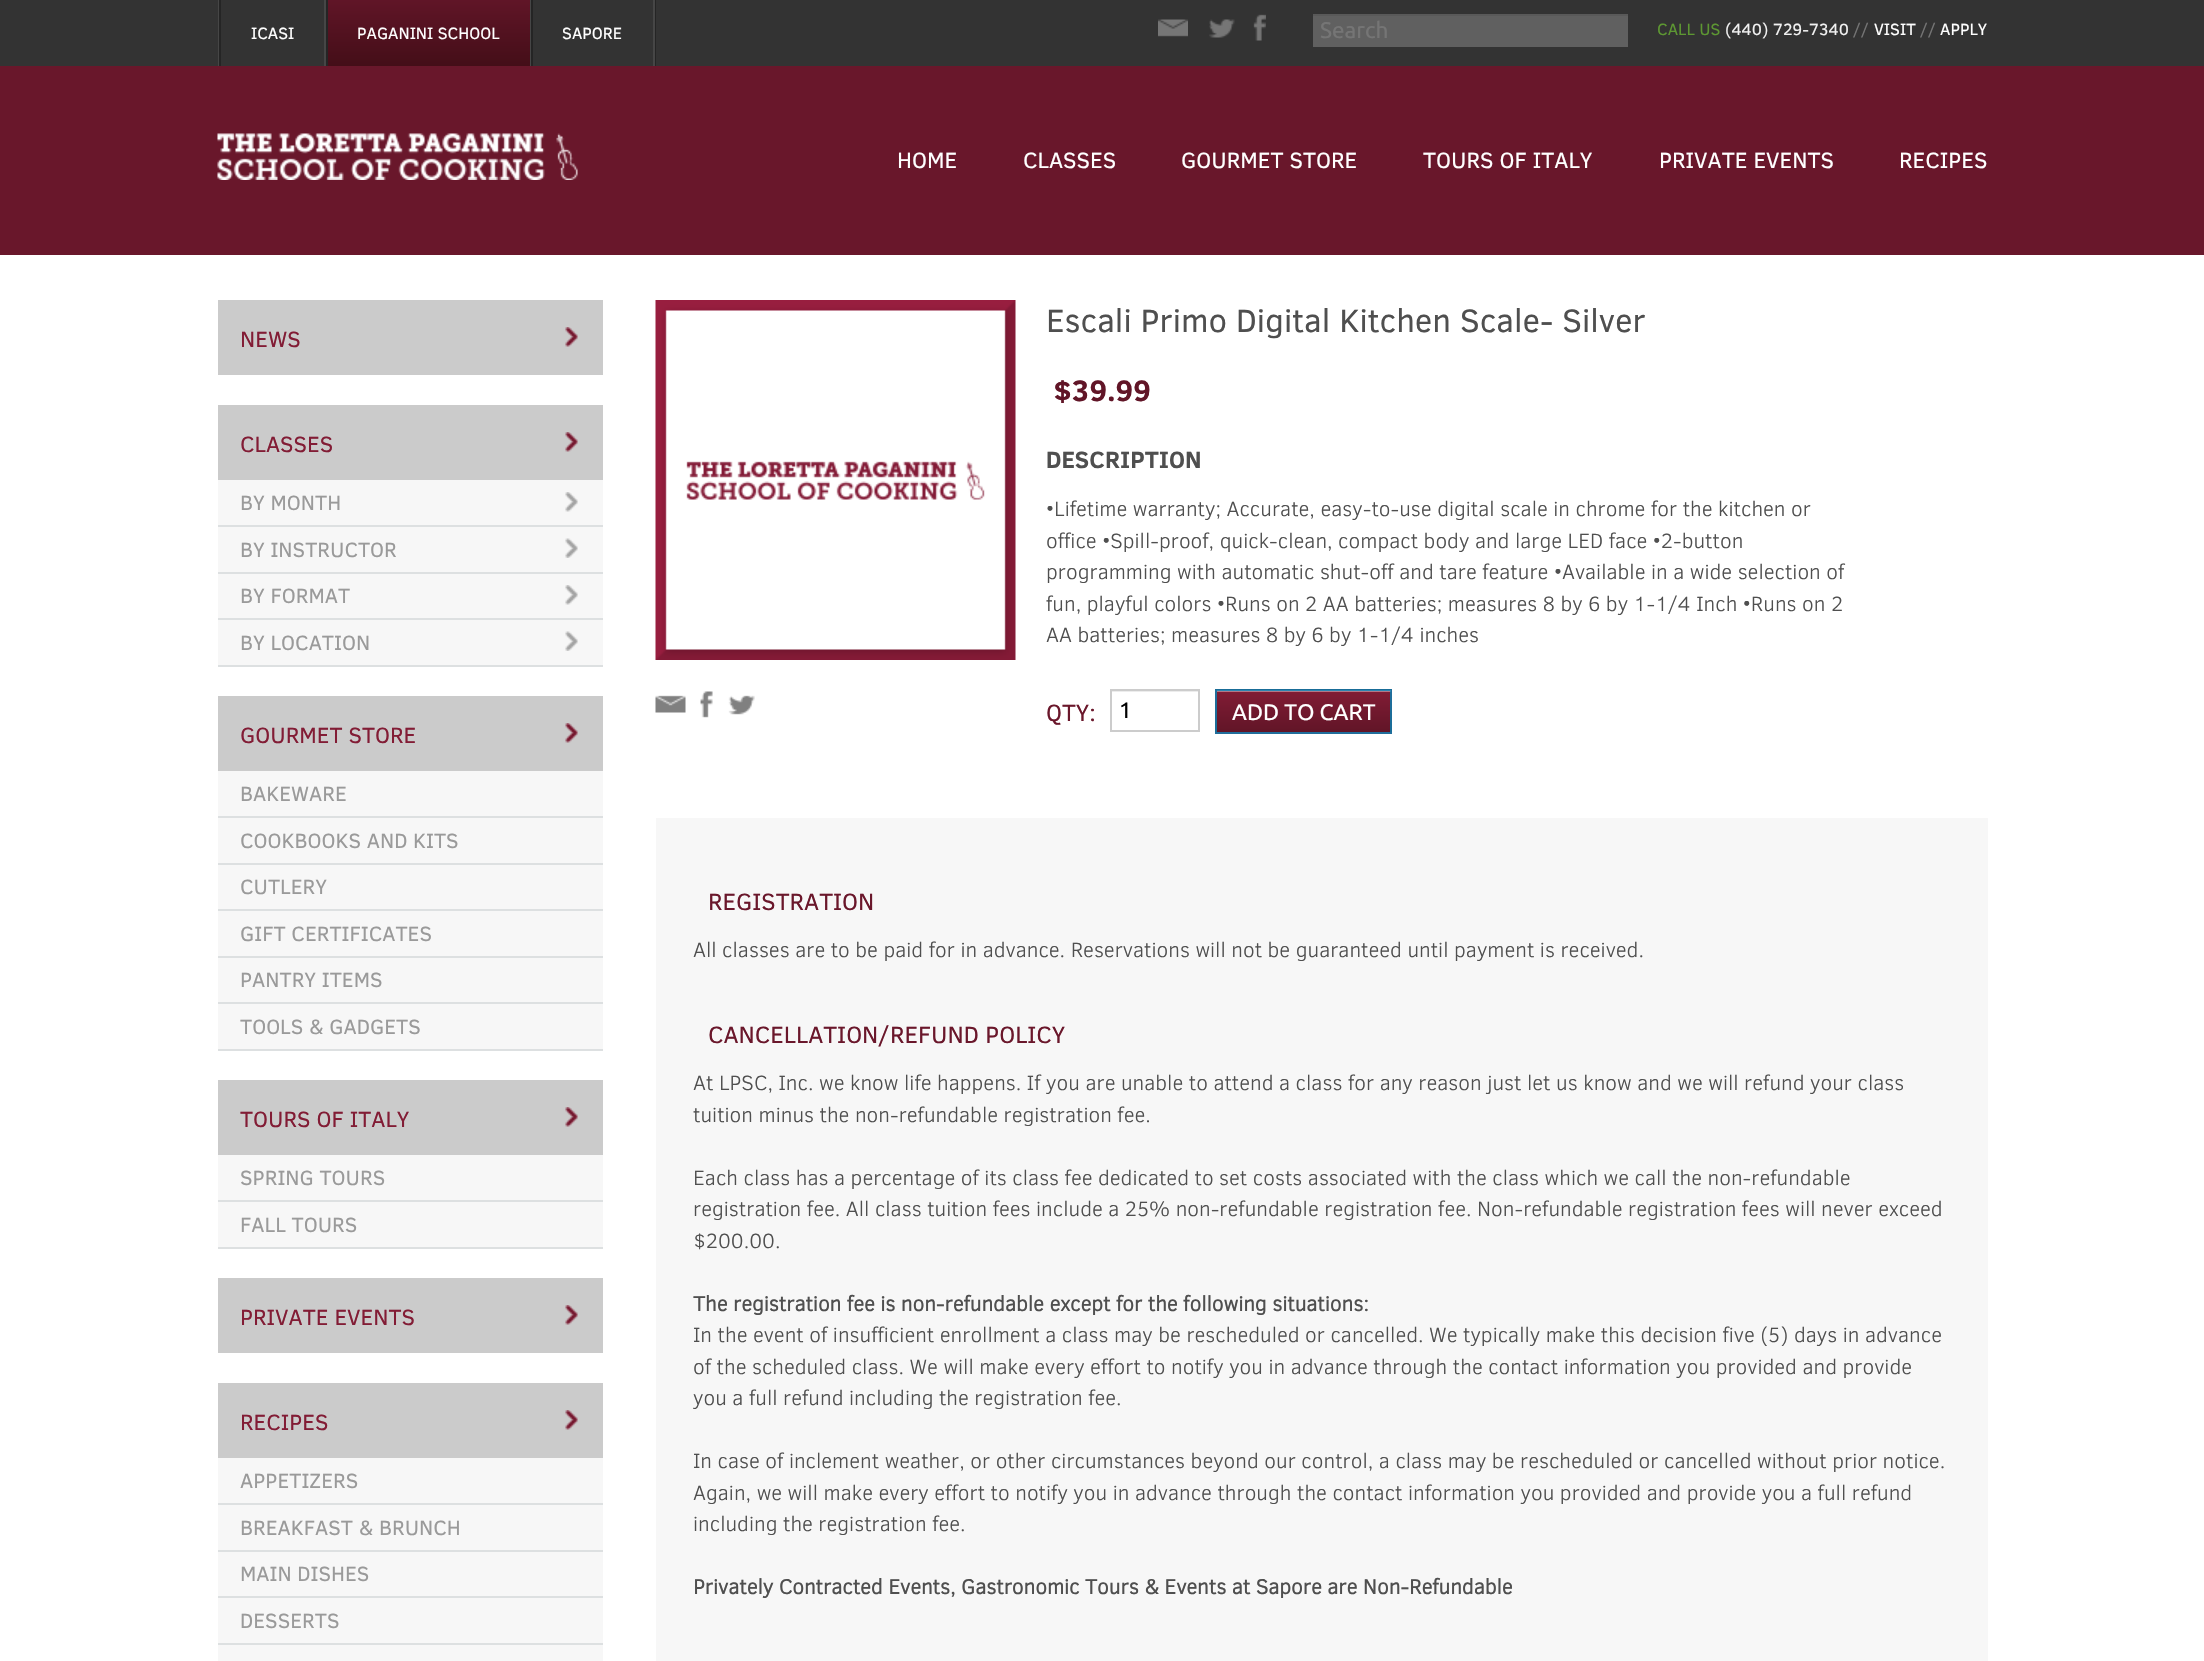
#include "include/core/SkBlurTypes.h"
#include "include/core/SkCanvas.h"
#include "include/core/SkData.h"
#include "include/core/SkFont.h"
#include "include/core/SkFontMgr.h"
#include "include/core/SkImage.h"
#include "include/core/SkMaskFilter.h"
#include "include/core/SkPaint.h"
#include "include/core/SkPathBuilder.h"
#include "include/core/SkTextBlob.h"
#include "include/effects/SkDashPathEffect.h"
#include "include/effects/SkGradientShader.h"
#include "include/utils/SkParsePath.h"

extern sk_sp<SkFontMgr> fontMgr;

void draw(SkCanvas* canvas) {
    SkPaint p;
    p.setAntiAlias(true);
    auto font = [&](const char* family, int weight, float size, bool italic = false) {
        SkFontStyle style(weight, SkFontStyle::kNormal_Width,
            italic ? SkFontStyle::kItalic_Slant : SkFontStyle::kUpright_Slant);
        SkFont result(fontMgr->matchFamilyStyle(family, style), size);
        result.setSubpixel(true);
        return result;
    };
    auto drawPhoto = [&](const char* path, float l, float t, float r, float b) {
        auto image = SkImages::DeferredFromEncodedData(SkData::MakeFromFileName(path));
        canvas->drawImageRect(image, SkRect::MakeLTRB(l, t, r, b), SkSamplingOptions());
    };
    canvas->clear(0xFFFFFFFF);
    {
        const struct { float l, t, r, b; SkColor color; } items[] = {
            {0, 0, 2204, 66, 0xFF333333},
            {655, 0, 656, 66, 0xFF252525},
            {218, 0, 219, 66, 0xFF464646},
            {324, 0, 326, 66, 0xFF464646},
            {219, 0, 221, 66, 0xFF252525},
        };
        for (auto [l, t, r, b, color] : items) {
            p.setColor(color);
            canvas->drawRect(SkRect::MakeLTRB(l, t, r, b), p);
        }
    }
    auto font1 = font("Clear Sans", 400, 16.5f);
    p.setColor(0xFFFFFFFF);
    canvas->drawString("ICASI", 251, 39, font1, p);
    {
        const SkColor colors[] = {0xFF601527, 0xFF440E18};
        const float stops[] = {0, 1};
        const SkPoint ends[] = {{428, 0}, {428, 66}};
        p.setShader(SkGradientShader::MakeLinear(ends, colors, stops, 2, SkTileMode::kClamp));
        p.setAlpha(255);
    }
    canvas->drawRect(SkRect::MakeLTRB(328, 0, 530, 66), p);
    p.setShader(nullptr);
    p.setColor(0xFF464646);
    canvas->drawRect(SkRect::MakeLTRB(530, 0, 531, 66), p);
    p.setColor(0xFF252525);
    canvas->drawRect(SkRect::MakeLTRB(326, 0, 328, 66), p);
    p.setColor(0xFFFFFFFF);
    canvas->drawString("PAGANINI SCHOOL", 357, 39, font1, p);
    p.setColor(0xFF464646);
    canvas->drawRect(SkRect::MakeLTRB(653, 0, 655, 66), p);
    p.setColor(0xFF252525);
    canvas->drawRect(SkRect::MakeLTRB(531, 0, 533, 66), p);
    p.setColor(0xFFFFFFFF);
    canvas->drawString("SAPORE", 562, 39, font1, p);
    drawPhoto("media/1.png", 1158, 19, 1188, 37);
    drawPhoto("media/2.png", 1209, 19, 1235, 38);
    drawPhoto("media/3.png", 1253, 14, 1266, 41);
    p.setColor(0xFF606060);
    canvas->drawRect(SkRect::MakeLTRB(1313, 16, 1628, 47), p);
    p.setColor(0xFF595959);
    canvas->drawRect(SkRect::MakeLTRB(1313, 14, 1628, 16), p);
    auto font2 = font("Ubuntu", 400, 22.5f);
    p.setColor(0xFF757575);
    canvas->drawString("Search", 1320, 38, font2, p);
    p.setColor(0xFF5D9732);
    canvas->drawString("CALL US", 1657, 35, font1, p);
    p.setColor(0xFFF1F1F1);
    canvas->drawString("(440) 729-7340", 1725, 35, font1, p);
    p.setColor(0xFF757575);
    canvas->drawString("//", 1853, 35, font1, p);
    p.setColor(0xFFFFFFFF);
    canvas->drawString("VISIT", 1874, 35, font1, p);
    p.setColor(0xFF757575);
    canvas->drawString("//", 1920, 35, font1, p);
    p.setColor(0xFFFFFFFF);
    canvas->drawString("APPLY", 1940, 35, font1, p);
    p.setColor(0xFF69172B);
    canvas->drawRect(SkRect::MakeLTRB(0, 66, 2204, 255), p);
    drawPhoto("media/4.png", 217, 133, 578, 180);
    auto font3 = font("Clear Sans", 400, 22.5f);
    p.setColor(0xFFFFFFFF);
    {
        const struct { const char* s; float x, y; } items[] = {
            {"HOME", 897, 168},
            {"CLASSES", 1023, 168},
            {"GOURMET STORE", 1181, 168},
            {"TOURS OF ITALY", 1423, 168},
            {"PRIVATE EVENTS", 1659, 168},
            {"RECIPES", 1899, 168},
        };
        for (auto [s, x, y] : items) {
            canvas->drawString(s, x, y, font3, p);
        }
    }
    p.setColor(0xFFCBCBCB);
    canvas->drawRect(SkRect::MakeLTRB(218, 300, 603, 375), p);
    p.setColor(0xFF821C35);
    canvas->drawString("NEWS", 240, 347, font3, p);
    drawPhoto("media/5.png", 565, 327, 578, 347);
    p.setColor(0xFFCBCBCB);
    canvas->drawRect(SkRect::MakeLTRB(218, 405, 603, 480), p);
    p.setColor(0xFF821C35);
    canvas->drawString("CLASSES", 240, 452, font3, p);
    drawPhoto("media/5.png", 565, 432, 578, 452);
    p.setColor(0xFFF7F7F7);
    canvas->drawRect(SkRect::MakeLTRB(218, 480, 603, 665), p);
    p.setColor(0xFFDDE0E1);
    canvas->drawRect(SkRect::MakeLTRB(218, 525, 603, 527), p);
    auto font4 = font("Clear Sans", 400, 21);
    p.setColor(0xFF9A9A9A);
    canvas->drawString("BY MONTH", 240, 510, font4, p);
    drawPhoto("media/6.png", 565, 492, 578, 512);
    p.setColor(0xFFDDE0E1);
    canvas->drawRect(SkRect::MakeLTRB(218, 572, 603, 574), p);
    p.setColor(0xFF9A9A9A);
    canvas->drawString("BY INSTRUCTOR", 240, 557, font4, p);
    drawPhoto("media/7.png", 565, 538, 578, 558);
    p.setColor(0xFFDDE0E1);
    canvas->drawRect(SkRect::MakeLTRB(218, 618, 603, 620), p);
    p.setColor(0xFF9A9A9A);
    canvas->drawString("BY FORMAT", 240, 603, font4, p);
    drawPhoto("media/6.png", 565, 585, 578, 605);
    p.setColor(0xFFDDE0E1);
    canvas->drawRect(SkRect::MakeLTRB(218, 665, 603, 667), p);
    p.setColor(0xFF9A9A9A);
    canvas->drawString("BY LOCATION", 240, 650, font4, p);
    drawPhoto("media/7.png", 565, 631, 578, 651);
    p.setColor(0xFFCBCBCB);
    canvas->drawRect(SkRect::MakeLTRB(218, 696, 603, 771), p);
    p.setColor(0xFF821C35);
    canvas->drawString("GOURMET STORE", 240, 743, font3, p);
    drawPhoto("media/5.png", 565, 723, 578, 743);
    p.setColor(0xFFF7F7F7);
    canvas->drawRect(SkRect::MakeLTRB(218, 771, 603, 1049), p);
    p.setColor(0xFFDDE0E1);
    canvas->drawRect(SkRect::MakeLTRB(218, 816, 603, 818), p);
    p.setColor(0xFF9A9A9A);
    canvas->drawString("BAKEWARE", 240, 801, font4, p);
    p.setColor(0xFFDDE0E1);
    canvas->drawRect(SkRect::MakeLTRB(218, 863, 603, 865), p);
    p.setColor(0xFF9A9A9A);
    canvas->drawString("COOKBOOKS AND KITS", 240, 848, font4, p);
    p.setColor(0xFFDDE0E1);
    canvas->drawRect(SkRect::MakeLTRB(218, 909, 603, 911), p);
    p.setColor(0xFF9A9A9A);
    canvas->drawString("CUTLERY", 240, 894, font4, p);
    p.setColor(0xFFDDE0E1);
    canvas->drawRect(SkRect::MakeLTRB(218, 956, 603, 958), p);
    p.setColor(0xFF9A9A9A);
    canvas->drawString("GIFT CERTIFICATES", 240, 941, font4, p);
    p.setColor(0xFFDDE0E1);
    canvas->drawRect(SkRect::MakeLTRB(218, 1002, 603, 1004), p);
    p.setColor(0xFF9A9A9A);
    canvas->drawString("PANTRY ITEMS", 240, 987, font4, p);
    p.setColor(0xFFDDE0E1);
    canvas->drawRect(SkRect::MakeLTRB(218, 1049, 603, 1051), p);
    p.setColor(0xFF9A9A9A);
    canvas->drawString("TOOLS & GADGETS", 240, 1034, font4, p);
    p.setColor(0xFFCBCBCB);
    canvas->drawRect(SkRect::MakeLTRB(218, 1080, 603, 1155), p);
    p.setColor(0xFF821C35);
    canvas->drawString("TOURS OF ITALY", 240, 1127, font3, p);
    drawPhoto("media/5.png", 565, 1107, 578, 1127);
    p.setColor(0xFFF7F7F7);
    canvas->drawRect(SkRect::MakeLTRB(218, 1155, 603, 1247), p);
    p.setColor(0xFFDDE0E1);
    canvas->drawRect(SkRect::MakeLTRB(218, 1200, 603, 1202), p);
    p.setColor(0xFF9A9A9A);
    canvas->drawString("SPRING TOURS", 240, 1185, font4, p);
    p.setColor(0xFFDDE0E1);
    canvas->drawRect(SkRect::MakeLTRB(218, 1247, 603, 1249), p);
    p.setColor(0xFF9A9A9A);
    canvas->drawString("FALL TOURS", 240, 1232, font4, p);
    p.setColor(0xFFCBCBCB);
    canvas->drawRect(SkRect::MakeLTRB(218, 1278, 603, 1353), p);
    p.setColor(0xFF821C35);
    canvas->drawString("PRIVATE EVENTS", 240, 1325, font3, p);
    drawPhoto("media/5.png", 565, 1305, 578, 1325);
    p.setColor(0xFFCBCBCB);
    canvas->drawRect(SkRect::MakeLTRB(218, 1383, 603, 1458), p);
    p.setColor(0xFF821C35);
    canvas->drawString("RECIPES", 240, 1430, font3, p);
    drawPhoto("media/5.png", 565, 1410, 578, 1430);
    p.setColor(0xFFF7F7F7);
    canvas->drawRect(SkRect::MakeLTRB(218, 1458, 603, 1661), p);
    p.setColor(0xFFDDE0E1);
    canvas->drawRect(SkRect::MakeLTRB(218, 1503, 603, 1505), p);
    p.setColor(0xFF9A9A9A);
    canvas->drawString("APPETIZERS", 240, 1488, font4, p);
    p.setColor(0xFFDDE0E1);
    canvas->drawRect(SkRect::MakeLTRB(218, 1550, 603, 1552), p);
    p.setColor(0xFF9A9A9A);
    canvas->drawString("BREAKFAST & BRUNCH", 240, 1535, font4, p);
    p.setColor(0xFFDDE0E1);
    canvas->drawRect(SkRect::MakeLTRB(218, 1596, 603, 1598), p);
    p.setColor(0xFF9A9A9A);
    canvas->drawString("MAIN DISHES", 240, 1581, font4, p);
    p.setColor(0xFFDDE0E1);
    canvas->drawRect(SkRect::MakeLTRB(218, 1643, 603, 1645), p);
    p.setColor(0xFF9A9A9A);
    canvas->drawString("DESSERTS", 240, 1628, font4, p);
    drawPhoto("media/8.png", 655, 300, 1016, 660);
    drawPhoto("media/9.png", 655, 695, 686, 713);
    drawPhoto("media/10.png", 700, 691, 713, 718);
    drawPhoto("media/11.png", 728, 695, 755, 715);
    auto font5 = font("Clear Sans", 400, 33);
    p.setColor(0xFF4F4F4F);
    canvas->drawString("Escali Primo Digital Kitchen Scale- Silver", 1046, 332, font5, p);
    auto font6 = font("Clear Sans", 700, 30);
    p.setColor(0xFF611527);
    canvas->drawString("$39.99", 1053, 401, font6, p);
    auto font7 = font("Clear Sans", 700, 24);
    p.setColor(0xFF4F4F4F);
    canvas->drawString("DESCRIPTION", 1046, 468, font7, p);
    auto font8 = font("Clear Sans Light", 300, 21);
    {
        const struct { const char* s; float x, y; } items[] = {
            {"•Lifetime warranty; Accurate, easy-to-use digital scale in chrome for the kitchen or", 1046, 516},
            {"office •Spill-proof, quick-clean, compact body and large LED face •2-button", 1046, 548},
            {"programming with automatic shut-off and tare feature •Available in a wide selection of", 1046, 579},
            {"fun, playful colors •Runs on 2 AA batteries; measures 8 by 6 by 1-1/4 Inch •Runs on 2", 1046, 611},
            {"AA batteries; measures 8 by 6 by 1-1/4 inches", 1046, 642},
        };
        for (auto [s, x, y] : items) {
            canvas->drawString(s, x, y, font8, p);
        }
    }
    auto font9 = font("Clear Sans", 400, 24);
    p.setColor(0xFF6A172B);
    canvas->drawString("QTY:", 1046, 721, font9, p);
    p.setColor(0xFFECECEC);
    canvas->drawRect(SkRect::MakeLTRB(1112, 691, 1199, 692), p);
    p.setStyle(SkPaint::kStroke_Style);
    p.setStrokeWidth(2);
    p.setColor(0xFFCCCCCC);
    canvas->drawRect(SkRect::MakeLTRB(1111, 690, 1199, 731), p);
    p.setStyle(SkPaint::kFill_Style);
    p.setColor(0xFF000000);
    canvas->drawString("1", 1119, 718, font2, p);
    p.setColor(0xFF611527);
    canvas->drawRect(SkRect::MakeLTRB(1215, 689, 1392, 690), p);
    {
        const SkColor colors[] = {0xFF821C35, 0xFF611527};
        const float stops[] = {0, 1};
        const SkPoint ends[] = {{1304, 690}, {1304, 732}};
        p.setShader(SkGradientShader::MakeLinear(ends, colors, stops, 2, SkTileMode::kClamp));
        p.setAlpha(255);
    }
    canvas->drawRect(SkRect::MakeLTRB(1215, 690, 1392, 732), p);
    {
        const SkColor colors[] = {0xFF821C35, 0xFF611527};
        const float stops[] = {0, 1};
        const SkPoint ends[] = {{1304, 732}, {1304, 774}};
        p.setShader(SkGradientShader::MakeLinear(ends, colors, stops, 2, SkTileMode::kClamp));
        p.setAlpha(255);
    }
    canvas->drawRect(SkRect::MakeLTRB(1215, 732, 1392, 734), p);
    p.setShader(nullptr);
    p.setColor(0xFFB47786);
    canvas->drawRect(SkRect::MakeLTRB(1217, 690, 1391, 692), p);
    p.setStyle(SkPaint::kStroke_Style);
    p.setColor(0xBF008ABD);
    canvas->drawRect(SkRect::MakeLTRB(1216, 690, 1391, 733), p);
    p.setStyle(SkPaint::kFill_Style);
    p.setColor(0xFFFFFFFF);
    canvas->drawString("ADD TO CART", 1232, 720, font2, p);
    p.setColor(0xFFF7F7F7);
    canvas->drawRect(SkRect::MakeLTRB(656, 818, 1988, 1661), p);
    p.setColor(0xFF6A172B);
    canvas->drawString("REGISTRATION", 708, 910, font9, p);
    p.setColor(0xFF4F4F4F);
    canvas->drawString("All classes are to be paid for in advance. Reservations will not be guaranteed until payment is received.", 693, 957, font8, p);
    p.setColor(0xFF6A172B);
    canvas->drawString("CANCELLATION/REFUND POLICY", 708, 1043, font9, p);
    p.setColor(0xFF4F4F4F);
    {
        const struct { const char* s; float x, y; } items[] = {
            {"At LPSC, Inc. we know life happens. If you are unable to attend a class for any reason just let us know and we will refund your class", 693, 1090},
            {"tuition minus the non-refundable registration fee.", 693, 1122},
            {"Each class has a percentage of its class fee dedicated to set costs associated with the class which we call the non-refundable", 693, 1185},
            {"registration fee. All class tuition fees include a 25% non-refundable registration fee. Non-refundable registration fees will never exceed", 693, 1216},
            {"$200.00.", 693, 1248},
        };
        for (auto [s, x, y] : items) {
            canvas->drawString(s, x, y, font8, p);
        }
    }
    auto font10 = font("Clear Sans Light", 700, 21);
    canvas->drawString("The registration fee is non-refundable except for the following situations:", 693, 1311, font10, p);
    {
        const struct { const char* s; float x, y; } items[] = {
            {"In the event of insufficient enrollment a class may be rescheduled or cancelled. We typically make this decision five (5) days in advance", 693, 1342},
            {"of the scheduled class. We will make every effort to notify you in advance through the contact information you provided and provide", 693, 1374},
            {"you a full refund including the registration fee.", 693, 1405},
            {"In case of inclement weather, or other circumstances beyond our control, a class may be rescheduled or cancelled without prior notice.", 693, 1468},
            {"Again, we will make every effort to notify you in advance through the contact information you provided and provide you a full refund", 693, 1500},
            {"including the registration fee.", 693, 1531},
        };
        for (auto [s, x, y] : items) {
            canvas->drawString(s, x, y, font8, p);
        }
    }
    canvas->drawString("Privately Contracted Events, Gastronomic Tours & Events at Sapore are Non-Refundable", 693, 1594, font10, p);
}
